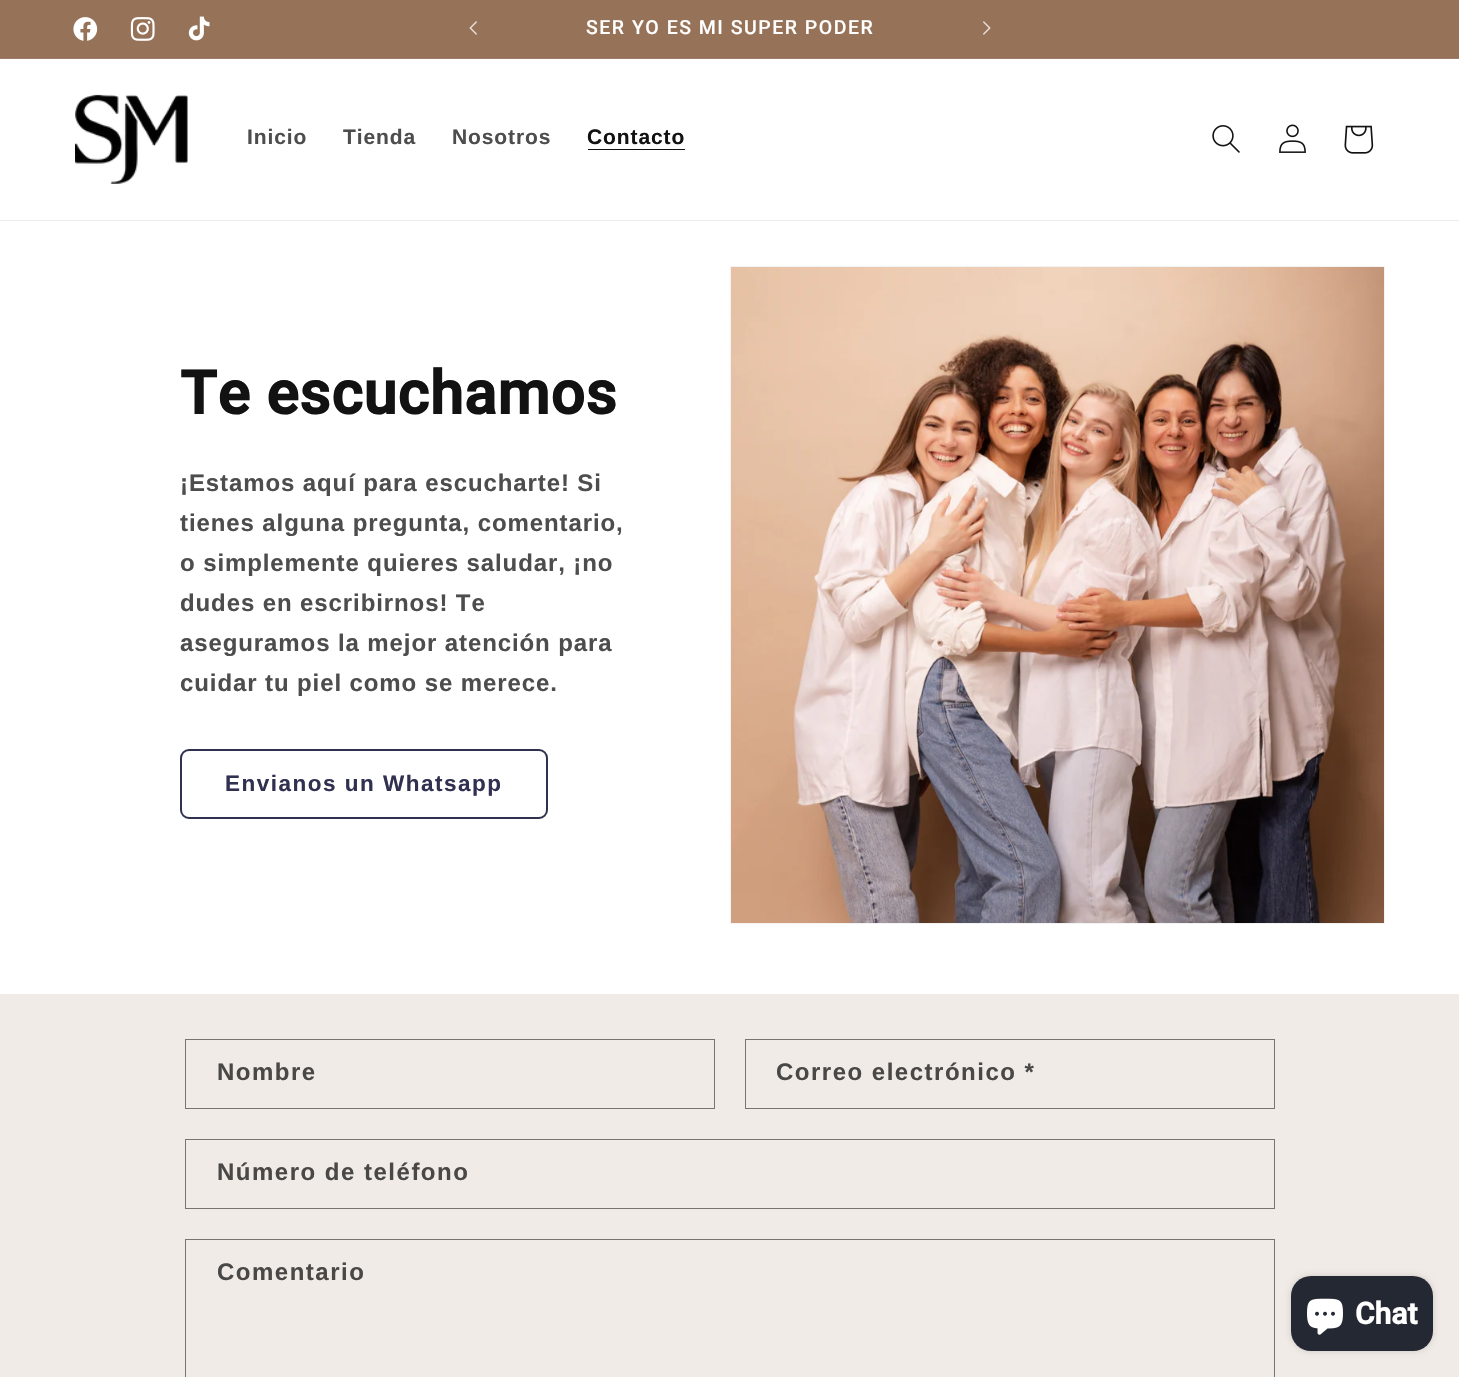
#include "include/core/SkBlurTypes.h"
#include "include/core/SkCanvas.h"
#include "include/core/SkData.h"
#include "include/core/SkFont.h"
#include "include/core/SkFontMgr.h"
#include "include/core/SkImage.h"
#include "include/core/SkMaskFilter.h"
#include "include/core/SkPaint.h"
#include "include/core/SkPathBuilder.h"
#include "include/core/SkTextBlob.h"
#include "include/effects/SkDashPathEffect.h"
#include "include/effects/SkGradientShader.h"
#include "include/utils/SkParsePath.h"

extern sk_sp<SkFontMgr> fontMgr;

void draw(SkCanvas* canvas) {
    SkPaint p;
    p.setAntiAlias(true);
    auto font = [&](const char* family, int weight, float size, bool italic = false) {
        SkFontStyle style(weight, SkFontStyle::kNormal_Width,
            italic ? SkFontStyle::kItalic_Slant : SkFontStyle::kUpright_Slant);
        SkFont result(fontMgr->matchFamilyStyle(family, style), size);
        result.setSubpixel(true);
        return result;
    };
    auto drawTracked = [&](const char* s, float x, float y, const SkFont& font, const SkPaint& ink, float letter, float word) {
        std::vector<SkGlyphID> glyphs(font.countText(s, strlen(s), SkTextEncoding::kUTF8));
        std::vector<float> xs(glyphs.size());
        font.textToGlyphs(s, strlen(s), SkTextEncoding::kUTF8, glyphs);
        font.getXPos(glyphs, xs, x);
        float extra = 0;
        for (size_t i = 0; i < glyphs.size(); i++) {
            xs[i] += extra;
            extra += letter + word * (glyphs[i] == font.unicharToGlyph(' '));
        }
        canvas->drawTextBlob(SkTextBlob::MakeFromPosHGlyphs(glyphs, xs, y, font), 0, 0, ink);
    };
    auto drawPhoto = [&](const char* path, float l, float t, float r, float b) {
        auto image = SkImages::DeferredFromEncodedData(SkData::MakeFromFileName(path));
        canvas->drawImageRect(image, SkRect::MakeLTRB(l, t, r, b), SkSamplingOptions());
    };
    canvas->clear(0xFFFFFFFF);
    p.setColor(0xFF967259);
    canvas->drawRect(SkRect::MakeLTRB(0, 0, 1459, 58), p);
    p.setColor(0xFF9E7D66);
    canvas->drawRect(SkRect::MakeLTRB(0, 58, 1459, 59), p);
    drawPhoto("media/1.png", 73, 17, 98, 41);
    drawPhoto("media/2.png", 130, 17, 155, 41);
    drawPhoto("media/3.png", 188, 16, 210, 41);
    drawPhoto("media/4.png", 469, 21, 477, 35);
    auto font1 = font("Roboto", 500, 19.5f);
    p.setColor(0xFFFFFFFF);
    drawTracked("SER YO ES MI SUPER PODER", 586, 34, font1, p, 1.5f, 0);
    drawPhoto("media/5.png", 983, 21, 991, 35);
    p.setColor(0xFFECECEC);
    canvas->drawRect(SkRect::MakeLTRB(0, 220, 1459, 221), p);
    drawPhoto("media/6.png", 75, 94, 188, 184);
    auto font2 = font("Arimo", 700, 21);
    p.setColor(0xFF4D4D4D);
    {
        const struct { const char* s; float x, y; } items[] = {
            {"Inicio", 247, 144},
            {"Tienda", 343, 144},
            {"Nosotros", 452, 144},
        };
        for (auto [s, x, y] : items) {
            drawTracked(s, x, y, font2, p, 0.9f, 0);
        }
    }
    p.setColor(0xFF121212);
    drawTracked("Contacto", 587, 144, font2, p, 0.9f, 0);
    canvas->drawRect(SkRect::MakeLTRB(588, 149, 685, 150), p);
    drawPhoto("media/7.png", 1212, 125, 1240, 153);
    drawPhoto("media/8.png", 1279, 124, 1306, 153);
    drawPhoto("media/9.png", 1344, 125, 1374, 154);
    auto font3 = font("Roboto", 700, 60);
    drawTracked("Te escuchamos", 180, 414, font3, p, 0.9f, 0);
    auto font4 = font("Arimo", 700, 24);
    p.setColor(0xFF4D4D4D);
    {
        const struct { const char* s; float x, y; } items[] = {
            {"¡Estamos aquí para escucharte! Si", 180, 491},
            {"tienes alguna pregunta, comentario,", 180, 531},
            {"o simplemente quieres saludar, ¡no", 180, 571},
            {"dudes en escribirnos! Te", 180, 611},
            {"aseguramos la mejor atención para", 180, 651},
            {"cuidar tu piel como se merece.", 180, 691},
        };
        for (auto [s, x, y] : items) {
            drawTracked(s, x, y, font4, p, 0.9f, 0);
        }
    }
    p.setStyle(SkPaint::kStroke_Style);
    p.setStrokeWidth(2);
    p.setColor(0xFF303150);
    canvas->drawRoundRect(SkRect::MakeLTRB(181, 750, 547, 818), 8, 8, p);
    auto font5 = font("Arimo", 700, 22.5f);
    p.setStyle(SkPaint::kFill_Style);
    drawTracked("Envianos un Whatsapp", 225, 791, font5, p, 1.5f, 0);
    p.setStyle(SkPaint::kStroke_Style);
    p.setStrokeWidth(1);
    p.setColor(0xFFF3F3F3);
    canvas->drawRect(SkRect::MakeLTRB(730.5f, 266.5f, 1384.5f, 923.5f), p);
    drawPhoto("media/10.png", 731, 267, 1384, 923);
    p.setStyle(SkPaint::kFill_Style);
    p.setColor(0xFFF0EBE6);
    canvas->drawRect(SkRect::MakeLTRB(0, 994, 1459, 1377), p);
    p.setStyle(SkPaint::kStroke_Style);
    p.setColor(0xFF767471);
    canvas->drawRect(SkRect::MakeLTRB(185.5f, 1039.5f, 714.5f, 1108.5f), p);
    p.setStyle(SkPaint::kFill_Style);
    p.setColor(0xFF4A4847);
    drawTracked("Nombre", 217, 1080, font4, p, 1.5f, 0);
    p.setStyle(SkPaint::kStroke_Style);
    p.setColor(0xFF767471);
    canvas->drawRect(SkRect::MakeLTRB(745.5f, 1039.5f, 1274.5f, 1108.5f), p);
    p.setStyle(SkPaint::kFill_Style);
    p.setColor(0xFF4A4847);
    drawTracked("Correo electrónico *", 776, 1080, font4, p, 1.5f, 0);
    p.setStyle(SkPaint::kStroke_Style);
    p.setColor(0xFF767471);
    canvas->drawRect(SkRect::MakeLTRB(185.5f, 1139.5f, 1274.5f, 1208.5f), p);
    p.setStyle(SkPaint::kFill_Style);
    p.setColor(0xFF4A4847);
    drawTracked("Número de teléfono", 217, 1180, font4, p, 1.5f, 0);
    p.setStyle(SkPaint::kStroke_Style);
    p.setColor(0xFF767471);
    canvas->drawRect(SkRect::MakeLTRB(185.5f, 1239.5f, 1274.5f, 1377.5f), p);
    p.setStyle(SkPaint::kFill_Style);
    p.setColor(0xFF4A4847);
    drawTracked("Comentario", 217, 1280, font4, p, 1.5f, 0);
    p.setColor(0x26000000);
    p.setMaskFilter(SkMaskFilter::MakeBlur(kNormal_SkBlurStyle, 3));
    canvas->drawRoundRect(SkRect::MakeLTRB(1291, 1276, 1433, 1351), 20, 20, p);
    p.setMaskFilter(nullptr);
    p.setColor(0xFF242833);
    canvas->drawRoundRect(SkRect::MakeLTRB(1291, 1276, 1433, 1351), 20, 20, p);
    drawPhoto("media/11.png", 1307, 1298, 1343, 1335);
    auto font6 = font("Roboto", 700, 30);
    p.setColor(0xFFFFFFFF);
    canvas->drawString("Chat", 1355, 1324, font6, p);
}
